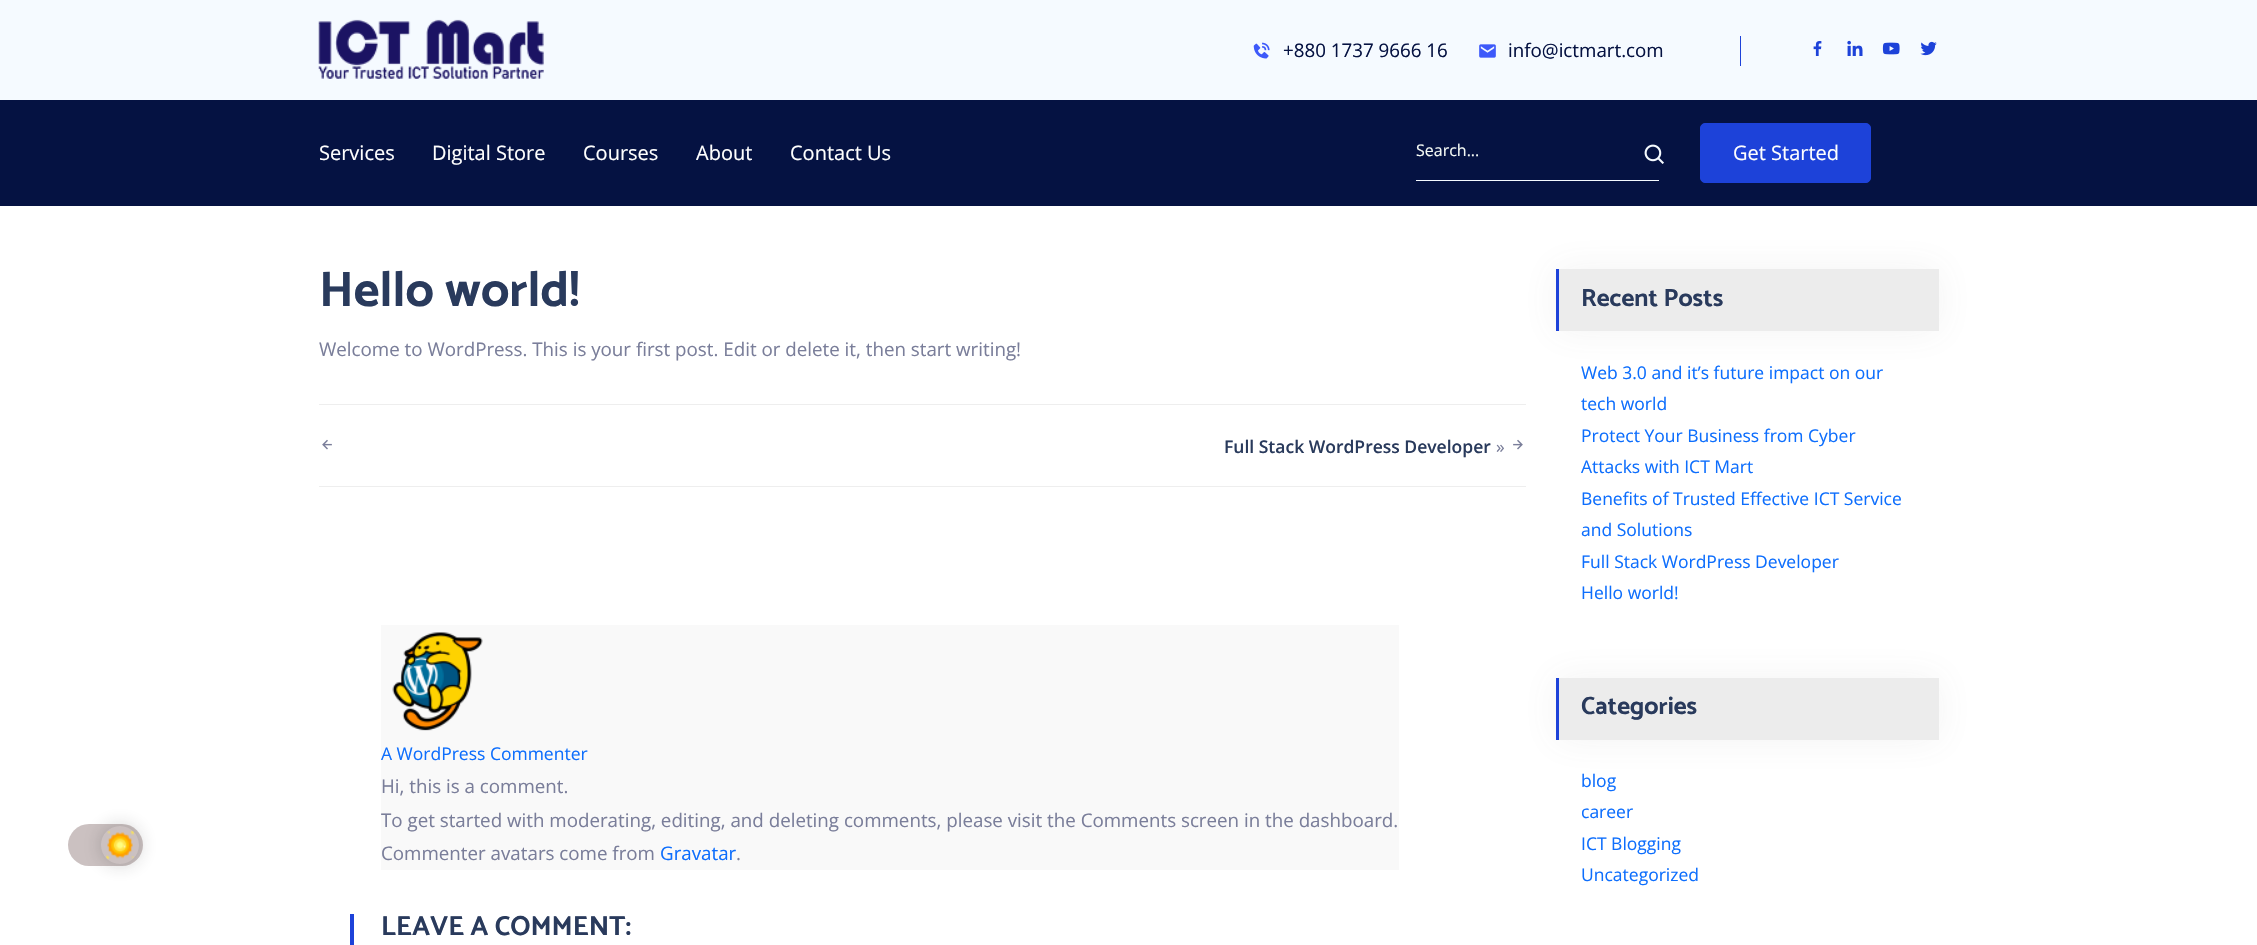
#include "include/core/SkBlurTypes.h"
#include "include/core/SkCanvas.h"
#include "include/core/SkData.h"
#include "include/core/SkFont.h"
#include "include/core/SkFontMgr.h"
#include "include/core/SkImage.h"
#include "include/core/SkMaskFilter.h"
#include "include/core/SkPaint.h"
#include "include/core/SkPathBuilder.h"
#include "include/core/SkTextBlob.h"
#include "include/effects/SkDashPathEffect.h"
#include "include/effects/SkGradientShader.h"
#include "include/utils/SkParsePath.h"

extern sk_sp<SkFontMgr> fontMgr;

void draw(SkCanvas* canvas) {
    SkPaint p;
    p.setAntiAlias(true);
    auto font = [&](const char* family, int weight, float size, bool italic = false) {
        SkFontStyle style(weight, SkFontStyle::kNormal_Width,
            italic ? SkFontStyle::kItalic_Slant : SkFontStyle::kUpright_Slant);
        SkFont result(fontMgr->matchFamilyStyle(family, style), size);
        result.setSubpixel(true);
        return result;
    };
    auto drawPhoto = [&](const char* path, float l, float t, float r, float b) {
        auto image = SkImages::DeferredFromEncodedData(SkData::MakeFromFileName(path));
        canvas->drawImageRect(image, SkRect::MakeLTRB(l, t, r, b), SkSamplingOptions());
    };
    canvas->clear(0xFFFFFFFF);
    p.setColor(0xFFF5FAFF);
    canvas->drawRect(SkRect::MakeLTRB(0, 0, 2257, 100), p);
    drawPhoto("media/1.png", 318, 19, 544, 79);
    drawPhoto("media/2.png", 1253, 42, 1270, 59);
    auto font1 = font("Open Sans", 400, 18.75f);
    p.setColor(0xFF051242);
    canvas->drawString("+880 1737 9666 16", 1283, 57, font1, p);
    drawPhoto("media/3.png", 1479, 44, 1496, 58);
    canvas->drawString("info@ictmart.com", 1508, 57, font1, p);
    p.setColor(0xFF1D42D9);
    canvas->drawRect(SkRect::MakeLTRB(1740, 36, 1741, 66), p);
    drawPhoto("media/4.png", 1813, 41, 1822, 56);
    drawPhoto("media/5.png", 1847, 40, 1863, 56);
    drawPhoto("media/6.png", 1882, 42, 1900, 55);
    drawPhoto("media/7.png", 1920, 41, 1937, 56);
    p.setColor(0xFF051242);
    canvas->drawRect(SkRect::MakeLTRB(0, 100, 2257, 206), p);
    auto font2 = font("Open Sans", 400, 20);
    p.setColor(0xFFFFFFFF);
    {
        const struct { const char* s; float x, y; } items[] = {
            {"Services", 319, 160},
            {"Digital Store", 432, 160},
            {"Courses", 583, 160},
            {"About", 696, 160},
            {"Contact Us", 790, 160},
        };
        for (auto [s, x, y] : items) {
            canvas->drawString(s, x, y, font2, p);
        }
    }
    p.setColor(0xFFF5FAFF);
    canvas->drawRect(SkRect::MakeLTRB(1416, 180, 1659, 181), p);
    auto font3 = font("Open Sans", 400, 16);
    p.setColor(0xFFF5FAF5);
    canvas->drawString("Search...", 1416, 156, font3, p);
    drawPhoto("media/8.png", 1644, 144, 1664, 164);
    p.setColor(0xFF1D42D9);
    canvas->drawRoundRect(SkRect::MakeLTRB(1700.5f, 123.5f, 1870.5f, 182.5f), 4.5f, 4.5f, p);
    p.setStyle(SkPaint::kStroke_Style);
    p.setStrokeWidth(1);
    canvas->drawRoundRect(SkRect::MakeLTRB(1700.5f, 123.5f, 1870.5f, 182.5f), 4.5f, 4.5f, p);
    p.setStyle(SkPaint::kFill_Style);
    p.setColor(0xFFFFFFFF);
    canvas->drawString("Get Started", 1733, 160, font2, p);
    p.setColor(0xFFCBC1C1);
    canvas->drawRoundRect(SkRect::MakeLTRB(68, 824, 143, 866), 21, 21, p);
    canvas->save();
    canvas->clipPath(SkPathBuilder(SkPathFillType::kEvenOdd).moveTo(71, 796).lineTo(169, 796).lineTo(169, 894).lineTo(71, 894).close().moveTo(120, 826).cubicTo(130.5f, 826, 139, 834.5f, 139, 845).cubicTo(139, 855.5f, 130.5f, 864, 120, 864).cubicTo(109.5f, 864, 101, 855.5f, 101, 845).cubicTo(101, 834.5f, 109.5f, 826, 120, 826).close().detach(), true);
    p.setColor(0x3D202020);
    p.setMaskFilter(SkMaskFilter::MakeBlur(kNormal_SkBlurStyle, 9.5f));
    canvas->drawRoundRect(SkRect::MakeLTRB(101, 826, 139, 864), 19, 19, p);
    p.setMaskFilter(nullptr);
    canvas->restore();
    drawPhoto("media/9.png", 105, 830, 135, 860);
    auto font4 = font("Catamaran", 700, 50);
    p.setColor(0xFF293A5C);
    canvas->drawString("Hello world!", 319, 306, font4, p);
    p.setColor(0xFF7A7E9A);
    canvas->drawString("Welcome to WordPress. This is your first post. Edit or delete it, then start writing!", 319, 356, font1, p);
    p.setColor(0xFFEEEEEE);
    canvas->drawRect(SkRect::MakeLTRB(319, 404, 1526, 405), p);
    canvas->drawRect(SkRect::MakeLTRB(319, 486, 1526, 487), p);
    drawPhoto("media/10.png", 322, 439, 332, 450);
    auto font5 = font("Open Sans", 600, 17.5f);
    p.setColor(0xFF293A5C);
    canvas->drawString("Full Stack WordPress Developer", 1224, 453, font5, p);
    auto font6 = font("Open Sans", 400, 17.5f);
    p.setColor(0xFF7A7E9A);
    canvas->drawString("»", 1496, 453, font6, p);
    drawPhoto("media/11.png", 1513, 439, 1523, 450);
    p.setColor(0xFFF9F9F9);
    canvas->drawRect(SkRect::MakeLTRB(381, 625, 1399, 870), p);
    drawPhoto("media/12.png", 392, 632, 483, 731);
    p.setColor(0xFF0D6EFD);
    canvas->drawString("A WordPress Commenter", 381, 760, font6, p);
    p.setColor(0xFF7A7E9A);
    {
        const struct { const char* s; float x, y; } items[] = {
            {"Hi, this is a comment.", 381, 793},
            {"To get started with moderating, editing, and deleting comments, please visit the Comments screen in the dashboard.", 381, 827},
            {"Commenter avatars come from", 381, 860},
        };
        for (auto [s, x, y] : items) {
            canvas->drawString(s, x, y, font1, p);
        }
    }
    p.setColor(0xFF0D6EFD);
    canvas->drawString("Gravatar", 660, 860, font1, p);
    p.setColor(0xFF7A7E9A);
    canvas->drawString(".", 736, 860, font1, p);
    p.setColor(0xFF1D42D9);
    canvas->drawRect(SkRect::MakeLTRB(350, 914, 354, 945), p);
    auto font7 = font("Catamaran", 700, 27.5f);
    p.setColor(0xFF293A5C);
    canvas->drawString("LEAVE A COMMENT:", 381, 935, font7, p);
    p.setColor(0x14666666);
    p.setMaskFilter(SkMaskFilter::MakeBlur(kNormal_SkBlurStyle, 18));
    canvas->drawRect(SkRect::MakeLTRB(1556, 269, 1939, 331), p);
    p.setMaskFilter(nullptr);
    p.setColor(0xFFECECEC);
    canvas->drawRect(SkRect::MakeLTRB(1559, 269, 1939, 331), p);
    p.setColor(0xFF1D42D9);
    canvas->drawRect(SkRect::MakeLTRB(1556, 269, 1559, 331), p);
    auto font8 = font("Catamaran", 700, 25);
    p.setColor(0xFF293A5C);
    canvas->drawString("Recent Posts", 1581, 306, font8, p);
    p.setColor(0xFF0D6EFD);
    {
        const struct { const char* s; float x, y; } items[] = {
            {"Web 3.0 and it’s future impact on our", 1581, 379},
            {"tech world", 1581, 410},
            {"Protect Your Business from Cyber", 1581, 442},
            {"Attacks with ICT Mart", 1581, 473},
            {"Benefits of Trusted Effective ICT Service", 1581, 505},
            {"and Solutions", 1581, 536},
            {"Full Stack WordPress Developer", 1581, 568},
            {"Hello world!", 1581, 599},
        };
        for (auto [s, x, y] : items) {
            canvas->drawString(s, x, y, font6, p);
        }
    }
    p.setColor(0x14666666);
    p.setMaskFilter(SkMaskFilter::MakeBlur(kNormal_SkBlurStyle, 18));
    canvas->drawRect(SkRect::MakeLTRB(1556, 678, 1939, 740), p);
    p.setMaskFilter(nullptr);
    p.setColor(0xFFECECEC);
    canvas->drawRect(SkRect::MakeLTRB(1559, 678, 1939, 740), p);
    p.setColor(0xFF1D42D9);
    canvas->drawRect(SkRect::MakeLTRB(1556, 678, 1559, 740), p);
    p.setColor(0xFF293A5C);
    canvas->drawString("Categories", 1581, 714, font8, p);
    p.setColor(0xFF0D6EFD);
    {
        const struct { const char* s; float x, y; } items[] = {
            {"blog", 1581, 787},
            {"career", 1581, 818},
            {"ICT Blogging", 1581, 850},
            {"Uncategorized", 1581, 881},
        };
        for (auto [s, x, y] : items) {
            canvas->drawString(s, x, y, font6, p);
        }
    }
}
